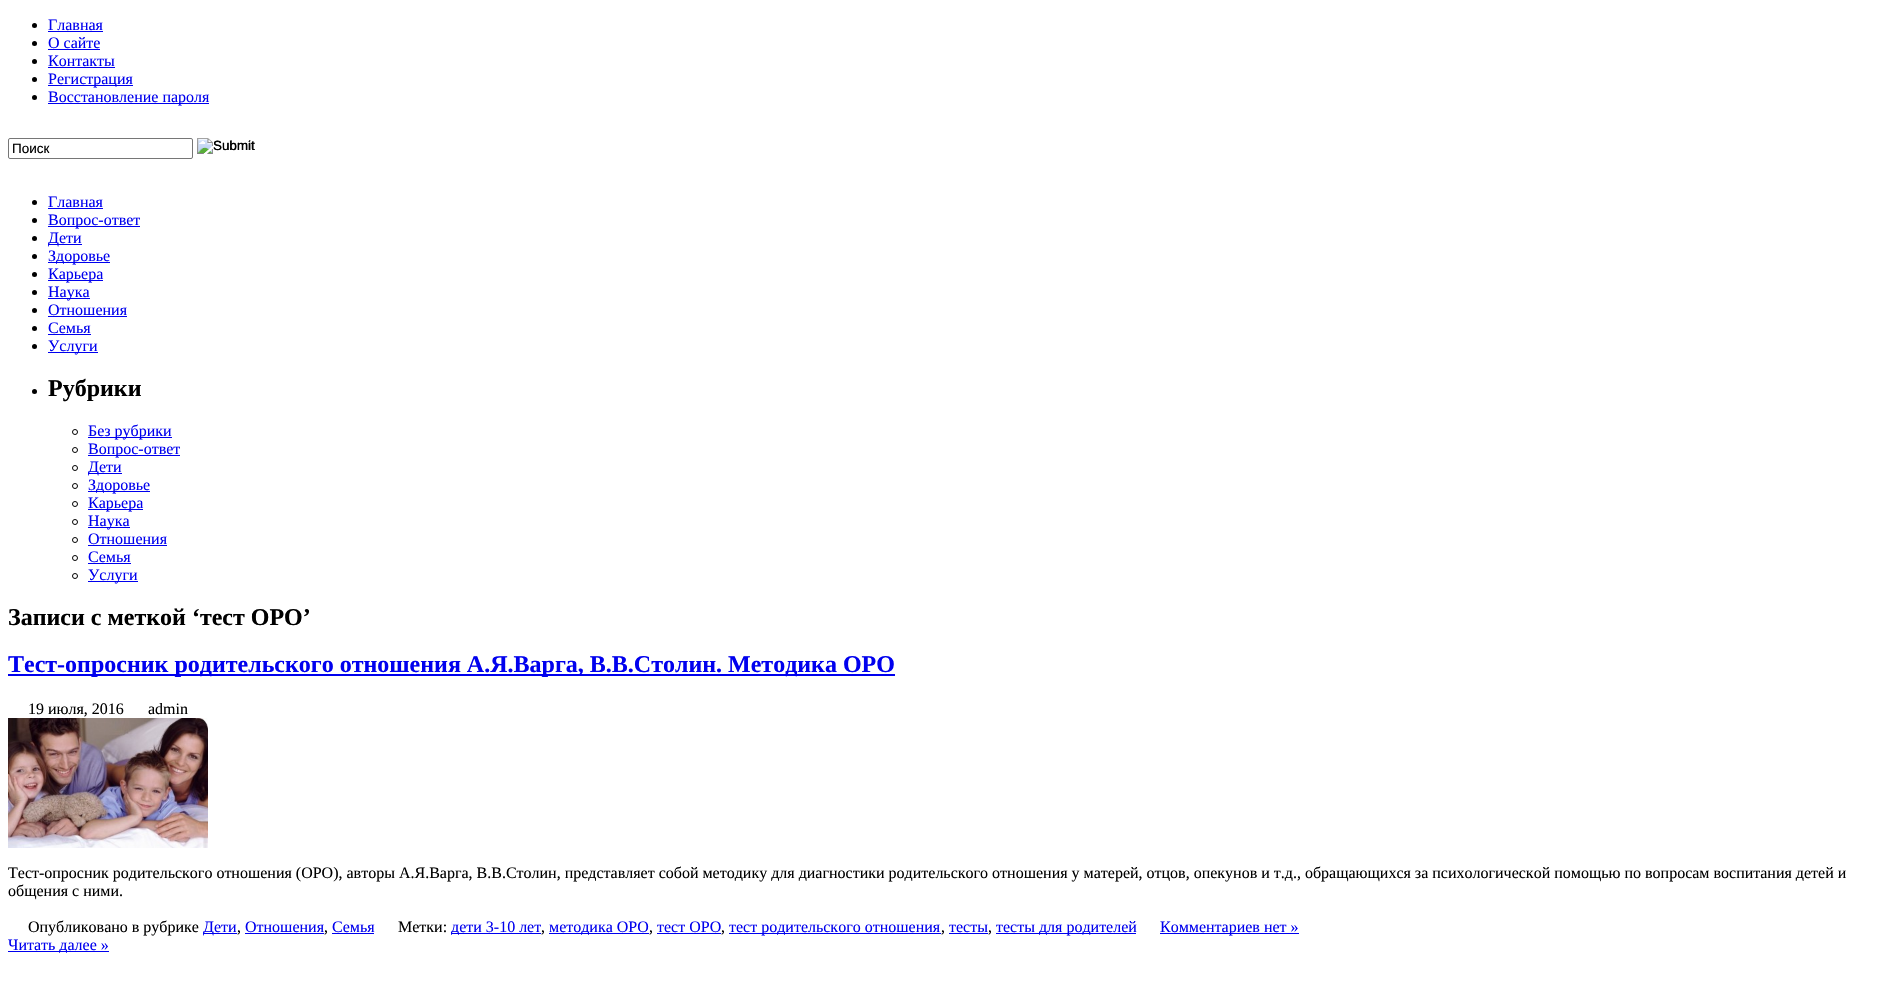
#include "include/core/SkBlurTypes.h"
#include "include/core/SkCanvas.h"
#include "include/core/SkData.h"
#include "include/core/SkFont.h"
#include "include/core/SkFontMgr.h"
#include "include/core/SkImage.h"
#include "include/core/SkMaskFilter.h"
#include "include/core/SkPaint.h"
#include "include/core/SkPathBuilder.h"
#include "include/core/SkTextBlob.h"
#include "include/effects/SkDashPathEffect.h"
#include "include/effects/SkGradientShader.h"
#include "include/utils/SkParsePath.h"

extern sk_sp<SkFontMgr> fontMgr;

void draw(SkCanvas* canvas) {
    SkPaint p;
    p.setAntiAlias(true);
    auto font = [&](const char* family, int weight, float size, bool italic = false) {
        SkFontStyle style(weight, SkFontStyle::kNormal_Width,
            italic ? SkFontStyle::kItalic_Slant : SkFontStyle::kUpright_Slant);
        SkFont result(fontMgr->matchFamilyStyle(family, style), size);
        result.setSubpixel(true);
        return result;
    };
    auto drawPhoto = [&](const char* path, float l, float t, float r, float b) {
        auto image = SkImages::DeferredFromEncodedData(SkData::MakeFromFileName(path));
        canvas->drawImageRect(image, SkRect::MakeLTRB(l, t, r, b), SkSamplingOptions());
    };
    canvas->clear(0xFFFFFFFF);
    p.setColor(0xFF000000);
    canvas->drawCircle(34.5f, 25.5f, 2.5f, p);
    auto font1 = font("Liberation Serif", 400, 16);
    p.setColor(0xFF0000EE);
    canvas->drawString("Главная", 48, 30, font1, p);
    canvas->drawRect(SkRect::MakeLTRB(48, 31, 103, 32), p);
    p.setColor(0xFF000000);
    canvas->drawCircle(34.5f, 43.5f, 2.5f, p);
    p.setColor(0xFF0000EE);
    canvas->drawString("О сайте", 48, 48, font1, p);
    canvas->drawRect(SkRect::MakeLTRB(48, 49, 100, 50), p);
    p.setColor(0xFF000000);
    canvas->drawCircle(34.5f, 61.5f, 2.5f, p);
    p.setColor(0xFF0000EE);
    canvas->drawString("Контакты", 48, 66, font1, p);
    canvas->drawRect(SkRect::MakeLTRB(48, 67, 115, 68), p);
    p.setColor(0xFF000000);
    canvas->drawCircle(34.5f, 79.5f, 2.5f, p);
    p.setColor(0xFF0000EE);
    canvas->drawRect(SkRect::MakeLTRB(48, 85, 133, 86), p);
    canvas->drawString("Регистрация", 48, 84, font1, p);
    p.setColor(0xFF000000);
    canvas->drawCircle(34.5f, 97.5f, 2.5f, p);
    p.setColor(0xFF0000EE);
    canvas->drawRect(SkRect::MakeLTRB(48, 103, 209, 104), p);
    canvas->drawString("Восстановление пароля", 48, 102, font1, p);
    p.setStyle(SkPaint::kStroke_Style);
    p.setStrokeWidth(1);
    p.setColor(0xFF767676);
    canvas->drawRoundRect(SkRect::MakeLTRB(8.5f, 138.5f, 192.5f, 158.5f), 1.5f, 1.5f, p);
    auto font2 = font("Liberation Sans", 400, 13.5f);
    p.setStyle(SkPaint::kFill_Style);
    p.setColor(0xFF000000);
    canvas->drawString("Поиск", 12, 153, font2, p);
    drawPhoto("media/1.png", 197, 138, 254, 154);
    canvas->drawString("Submit", 213, 150, font2, p);
    canvas->drawCircle(34.5f, 202.5f, 2.5f, p);
    p.setColor(0xFF0000EE);
    canvas->drawString("Главная", 48, 207, font1, p);
    canvas->drawRect(SkRect::MakeLTRB(48, 208, 103, 209), p);
    p.setColor(0xFF000000);
    canvas->drawCircle(34.5f, 220.5f, 2.5f, p);
    p.setColor(0xFF0000EE);
    canvas->drawRect(SkRect::MakeLTRB(48, 226, 140, 227), p);
    canvas->drawString("Вопрос-ответ", 48, 225, font1, p);
    p.setColor(0xFF000000);
    canvas->drawCircle(34.5f, 238.5f, 2.5f, p);
    p.setColor(0xFF0000EE);
    canvas->drawRect(SkRect::MakeLTRB(48, 244, 82, 245), p);
    canvas->drawString("Дети", 48, 243, font1, p);
    p.setColor(0xFF000000);
    canvas->drawCircle(34.5f, 256.5f, 2.5f, p);
    p.setColor(0xFF0000EE);
    canvas->drawRect(SkRect::MakeLTRB(48, 262, 110, 263), p);
    canvas->drawString("Здоровье", 48, 261, font1, p);
    p.setColor(0xFF000000);
    canvas->drawCircle(34.5f, 274.5f, 2.5f, p);
    p.setColor(0xFF0000EE);
    canvas->drawRect(SkRect::MakeLTRB(48, 280, 103, 281), p);
    canvas->drawString("Карьера", 48, 279, font1, p);
    p.setColor(0xFF000000);
    canvas->drawCircle(34.5f, 292.5f, 2.5f, p);
    p.setColor(0xFF0000EE);
    canvas->drawRect(SkRect::MakeLTRB(48, 298, 90, 299), p);
    canvas->drawString("Наука", 48, 297, font1, p);
    p.setColor(0xFF000000);
    canvas->drawCircle(34.5f, 310.5f, 2.5f, p);
    p.setColor(0xFF0000EE);
    canvas->drawString("Отношения", 48, 315, font1, p);
    canvas->drawRect(SkRect::MakeLTRB(48, 316, 127, 317), p);
    p.setColor(0xFF000000);
    canvas->drawCircle(34.5f, 328.5f, 2.5f, p);
    p.setColor(0xFF0000EE);
    canvas->drawString("Семья", 48, 333, font1, p);
    canvas->drawRect(SkRect::MakeLTRB(48, 334, 91, 335), p);
    p.setColor(0xFF000000);
    canvas->drawCircle(34.5f, 346.5f, 2.5f, p);
    p.setColor(0xFF0000EE);
    canvas->drawRect(SkRect::MakeLTRB(48, 352, 98, 353), p);
    canvas->drawString("Услуги", 48, 351, font1, p);
    p.setColor(0xFF000000);
    canvas->drawCircle(34.5f, 391.5f, 2.5f, p);
    auto font3 = font("Liberation Serif", 700, 24);
    canvas->drawString("Рубрики", 48, 396, font3, p);
    p.setStyle(SkPaint::kStroke_Style);
    canvas->drawCircle(75, 432, 2.5f, p);
    p.setStyle(SkPaint::kFill_Style);
    p.setColor(0xFF0000EE);
    canvas->drawRect(SkRect::MakeLTRB(88, 437, 172, 438), p);
    canvas->drawString("Без рубрики", 88, 436, font1, p);
    p.setStyle(SkPaint::kStroke_Style);
    p.setColor(0xFF000000);
    canvas->drawCircle(75, 450, 2.5f, p);
    p.setStyle(SkPaint::kFill_Style);
    p.setColor(0xFF0000EE);
    canvas->drawRect(SkRect::MakeLTRB(88, 455, 180, 456), p);
    canvas->drawString("Вопрос-ответ", 88, 454, font1, p);
    p.setStyle(SkPaint::kStroke_Style);
    p.setColor(0xFF000000);
    canvas->drawCircle(75, 468, 2.5f, p);
    p.setStyle(SkPaint::kFill_Style);
    p.setColor(0xFF0000EE);
    canvas->drawRect(SkRect::MakeLTRB(88, 473, 122, 474), p);
    canvas->drawString("Дети", 88, 472, font1, p);
    p.setStyle(SkPaint::kStroke_Style);
    p.setColor(0xFF000000);
    canvas->drawCircle(75, 486, 2.5f, p);
    p.setStyle(SkPaint::kFill_Style);
    p.setColor(0xFF0000EE);
    canvas->drawRect(SkRect::MakeLTRB(88, 491, 150, 492), p);
    canvas->drawString("Здоровье", 88, 490, font1, p);
    p.setStyle(SkPaint::kStroke_Style);
    p.setColor(0xFF000000);
    canvas->drawCircle(75, 504, 2.5f, p);
    p.setStyle(SkPaint::kFill_Style);
    p.setColor(0xFF0000EE);
    canvas->drawRect(SkRect::MakeLTRB(88, 509, 143, 510), p);
    canvas->drawString("Карьера", 88, 508, font1, p);
    p.setStyle(SkPaint::kStroke_Style);
    p.setColor(0xFF000000);
    canvas->drawCircle(75, 522, 2.5f, p);
    p.setStyle(SkPaint::kFill_Style);
    p.setColor(0xFF0000EE);
    canvas->drawRect(SkRect::MakeLTRB(88, 527, 130, 528), p);
    canvas->drawString("Наука", 88, 526, font1, p);
    p.setStyle(SkPaint::kStroke_Style);
    p.setColor(0xFF000000);
    canvas->drawCircle(75, 540, 2.5f, p);
    p.setStyle(SkPaint::kFill_Style);
    p.setColor(0xFF0000EE);
    canvas->drawString("Отношения", 88, 544, font1, p);
    canvas->drawRect(SkRect::MakeLTRB(88, 545, 167, 546), p);
    p.setStyle(SkPaint::kStroke_Style);
    p.setColor(0xFF000000);
    canvas->drawCircle(75, 558, 2.5f, p);
    p.setStyle(SkPaint::kFill_Style);
    p.setColor(0xFF0000EE);
    canvas->drawString("Семья", 88, 562, font1, p);
    canvas->drawRect(SkRect::MakeLTRB(88, 563, 131, 564), p);
    p.setStyle(SkPaint::kStroke_Style);
    p.setColor(0xFF000000);
    canvas->drawCircle(75, 576, 2.5f, p);
    p.setStyle(SkPaint::kFill_Style);
    p.setColor(0xFF0000EE);
    canvas->drawRect(SkRect::MakeLTRB(88, 581, 138, 582), p);
    canvas->drawString("Услуги", 88, 580, font1, p);
    p.setColor(0xFF000000);
    canvas->drawString("Записи с меткой ‘тест ОРО’", 8, 625, font3, p);
    p.setColor(0xFF0000EE);
    canvas->drawRect(SkRect::MakeLTRB(8, 674, 895, 676), p);
    canvas->drawString("Тест-опросник родительского отношения А.Я.Варга, В.В.Столин. Методика ОРО", 8, 672, font3, p);
    p.setColor(0xFF000000);
    canvas->drawString("19 июля, 2016", 28, 714, font1, p);
    canvas->drawString("admin", 148, 714, font1, p);
    drawPhoto("media/2.png", 8, 718, 208, 848);
    {
        const struct { const char* s; float x, y; } items[] = {
            {"Тест-опросник родительского отношения (ОРО), авторы А.Я.Варга, В.В.Столин, представляет собой методику для диагностики родительского отношения у матерей, отцов, опекунов и т.д., обращающихся за психологической помощью по вопросам воспитания детей и", 8, 878},
            {"общения с ними.", 8, 896},
            {"Опубликовано в рубрике", 28, 932},
        };
        for (auto [s, x, y] : items) {
            canvas->drawString(s, x, y, font1, p);
        }
    }
    p.setColor(0xFF0000EE);
    canvas->drawRect(SkRect::MakeLTRB(203, 933, 237, 934), p);
    canvas->drawString("Дети", 203, 932, font1, p);
    p.setColor(0xFF000000);
    canvas->drawString(",", 237, 932, font1, p);
    p.setColor(0xFF0000EE);
    canvas->drawString("Отношения", 245, 932, font1, p);
    canvas->drawRect(SkRect::MakeLTRB(245, 933, 324, 934), p);
    p.setColor(0xFF000000);
    canvas->drawString(",", 324, 932, font1, p);
    p.setColor(0xFF0000EE);
    canvas->drawString("Семья", 332, 932, font1, p);
    canvas->drawRect(SkRect::MakeLTRB(332, 933, 374, 934), p);
    p.setColor(0xFF000000);
    canvas->drawString("Метки:", 398, 932, font1, p);
    p.setColor(0xFF0000EE);
    canvas->drawRect(SkRect::MakeLTRB(451, 933, 541, 934), p);
    canvas->drawString("дети 3-10 лет", 451, 932, font1, p);
    p.setColor(0xFF000000);
    canvas->drawString(",", 541, 932, font1, p);
    p.setColor(0xFF0000EE);
    canvas->drawRect(SkRect::MakeLTRB(549, 933, 649, 934), p);
    canvas->drawString("методика ОРО", 549, 932, font1, p);
    p.setColor(0xFF000000);
    canvas->drawString(",", 649, 932, font1, p);
    p.setColor(0xFF0000EE);
    canvas->drawString("тест ОРО", 657, 932, font1, p);
    canvas->drawRect(SkRect::MakeLTRB(657, 933, 721, 934), p);
    p.setColor(0xFF000000);
    canvas->drawString(",", 721, 932, font1, p);
    p.setColor(0xFF0000EE);
    canvas->drawRect(SkRect::MakeLTRB(729, 933, 941, 934), p);
    canvas->drawString("тест родительского отношения", 729, 932, font1, p);
    p.setColor(0xFF000000);
    canvas->drawString(",", 941, 932, font1, p);
    p.setColor(0xFF0000EE);
    canvas->drawString("тесты", 949, 932, font1, p);
    canvas->drawRect(SkRect::MakeLTRB(949, 933, 988, 934), p);
    p.setColor(0xFF000000);
    canvas->drawString(",", 988, 932, font1, p);
    p.setColor(0xFF0000EE);
    canvas->drawRect(SkRect::MakeLTRB(996, 933, 1136, 934), p);
    canvas->drawString("тесты для родителей", 996, 932, font1, p);
    canvas->drawRect(SkRect::MakeLTRB(1160, 933, 1299, 934), p);
    canvas->drawString("Комментариев нет »", 1160, 932, font1, p);
    canvas->drawRect(SkRect::MakeLTRB(8, 951, 109, 952), p);
    canvas->drawString("Читать далее »", 8, 950, font1, p);
}
